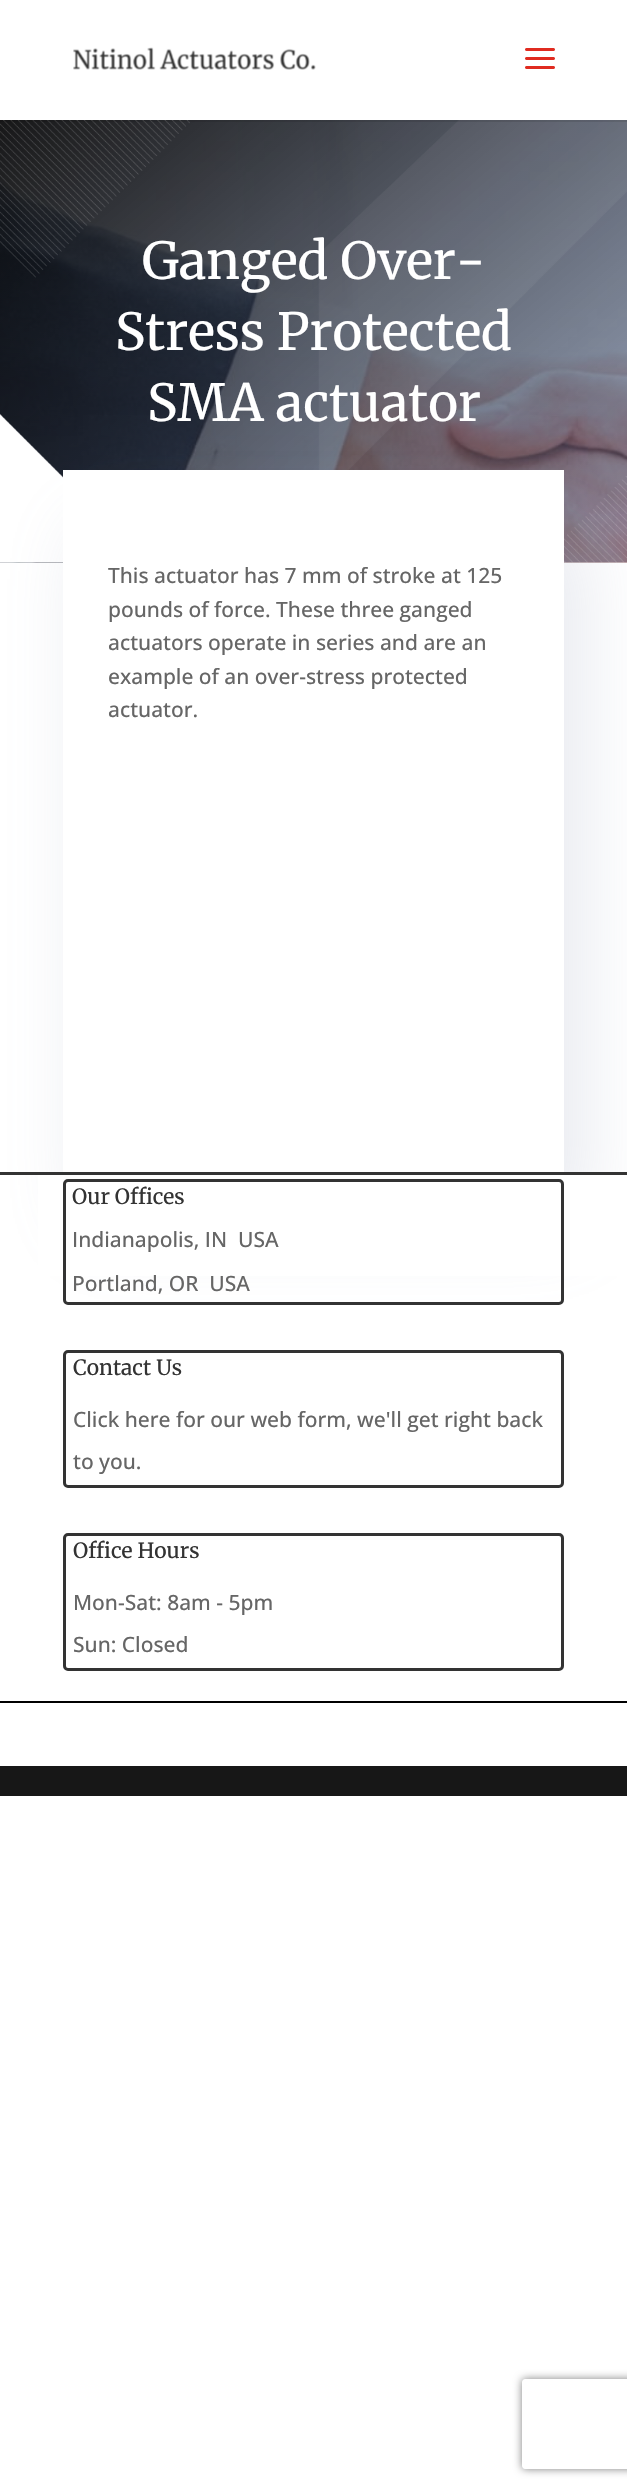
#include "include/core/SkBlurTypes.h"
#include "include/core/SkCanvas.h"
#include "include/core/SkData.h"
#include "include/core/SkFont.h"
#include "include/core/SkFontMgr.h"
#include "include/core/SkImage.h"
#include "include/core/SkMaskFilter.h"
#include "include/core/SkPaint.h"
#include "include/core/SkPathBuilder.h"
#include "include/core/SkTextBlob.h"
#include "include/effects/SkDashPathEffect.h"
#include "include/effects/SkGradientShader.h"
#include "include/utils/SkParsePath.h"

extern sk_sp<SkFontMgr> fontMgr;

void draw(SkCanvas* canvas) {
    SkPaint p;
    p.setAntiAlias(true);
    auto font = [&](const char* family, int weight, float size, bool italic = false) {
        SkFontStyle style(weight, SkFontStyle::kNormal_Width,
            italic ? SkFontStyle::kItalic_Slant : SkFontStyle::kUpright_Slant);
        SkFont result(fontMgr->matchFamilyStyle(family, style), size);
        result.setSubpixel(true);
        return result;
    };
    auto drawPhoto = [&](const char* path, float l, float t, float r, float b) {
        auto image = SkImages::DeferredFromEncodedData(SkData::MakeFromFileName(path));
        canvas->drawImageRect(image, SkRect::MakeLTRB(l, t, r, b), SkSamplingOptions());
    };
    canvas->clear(0xFFFFFFFF);
    drawPhoto("media/3.png", 0, 120, 627, 563);
    drawPhoto("media/4.png", 0, 120, 627, 563);
    p.setColor(0x1A000000);
    canvas->drawRect(SkRect::MakeLTRB(0, 120, 627, 122), p);
    drawPhoto("media/1.png", 73, 47, 316, 70);
    drawPhoto("media/2.png", 525, 48, 555, 69);
    p.setColor(0xFF000000);
    canvas->drawRect(SkRect::MakeLTRB(0, 1701, 627, 1703), p);
    auto font1 = font("Merriweather", 300, 51);
    p.setColor(0xFFFFFFFF);
    canvas->drawString("Ganged Over-", 142, 279, font1, p);
    canvas->drawString("Stress Protected", 115, 350, font1, p);
    p.setColor(0x33858FAF);
    p.setMaskFilter(SkMaskFilter::MakeBlur(kNormal_SkBlurStyle, 37.5f));
    canvas->drawRect(SkRect::MakeLTRB(83, 527, 584, 1229), p);
    p.setMaskFilter(nullptr);
    p.setColor(0xFFFFFFFF);
    canvas->drawString("SMA actuator", 147, 421, font1, p);
    canvas->drawRect(SkRect::MakeLTRB(63, 470, 564, 1172), p);
    auto font2 = font("Open Sans", 500, 21);
    p.setColor(0xFF666666);
    {
        const struct { const char* s; float x, y; } items[] = {
            {"This actuator has 7 mm of stroke at 125", 108, 583},
            {"pounds of force. These three ganged", 108, 617},
            {"actuators operate in series and are an", 108, 650},
            {"example of an over-stress protected", 108, 684},
            {"actuator.", 108, 717},
        };
        for (auto [s, x, y] : items) {
            canvas->drawString(s, x, y, font2, p);
        }
    }
    p.setColor(0xFFFFFFFF);
    canvas->drawRect(SkRect::MakeLTRB(38, 1175, 627, 1276), p);
    p.setColor(0xFF333333);
    canvas->drawRect(SkRect::MakeLTRB(0, 1172, 627, 1175), p);
    p.setStyle(SkPaint::kStroke_Style);
    p.setStrokeWidth(3);
    canvas->drawRoundRect(SkRect::MakeLTRB(64.5f, 1180.5f, 562.5f, 1303.5f), 3.5f, 3.5f, p);
    auto font3 = font("Merriweather", 300, 21);
    p.setStyle(SkPaint::kFill_Style);
    canvas->drawString("Our Offices", 72, 1204, font3, p);
    p.setColor(0xFF666666);
    canvas->drawString("Indianapolis, IN  USA", 72, 1247, font2, p);
    canvas->drawString("Portland, OR  USA", 72, 1291, font2, p);
    p.setStyle(SkPaint::kStroke_Style);
    p.setColor(0xFF333333);
    canvas->drawRoundRect(SkRect::MakeLTRB(64.5f, 1351.5f, 562.5f, 1486.5f), 3.5f, 3.5f, p);
    p.setStyle(SkPaint::kFill_Style);
    canvas->drawString("Contact Us", 73, 1375, font3, p);
    p.setColor(0xFF666666);
    canvas->drawString("Click here for our web form, we'll get right back", 73, 1427, font2, p);
    canvas->drawString("to you.", 73, 1469, font2, p);
    p.setStyle(SkPaint::kStroke_Style);
    p.setColor(0xFF333333);
    canvas->drawRoundRect(SkRect::MakeLTRB(64.5f, 1534.5f, 562.5f, 1669.5f), 3.5f, 3.5f, p);
    p.setStyle(SkPaint::kFill_Style);
    canvas->drawString("Office Hours", 73, 1558, font3, p);
    p.setColor(0xFF666666);
    canvas->drawString("Mon-Sat: 8am - 5pm", 73, 1610, font2, p);
    canvas->drawString("Sun: Closed", 73, 1652, font2, p);
    p.setColor(0xFF171717);
    canvas->drawRect(SkRect::MakeLTRB(0, 1766, 627, 1796), p);
    canvas->save();
    canvas->clipPath(SkPathBuilder(SkPathFillType::kEvenOdd).moveTo(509, 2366).lineTo(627, 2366).lineTo(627, 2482).lineTo(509, 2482).close().moveTo(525, 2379).lineTo(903, 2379).cubicTo(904.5f, 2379, 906, 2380.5f, 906, 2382).lineTo(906, 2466).cubicTo(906, 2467.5f, 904.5f, 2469, 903, 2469).lineTo(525, 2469).cubicTo(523.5f, 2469, 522, 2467.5f, 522, 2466).lineTo(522, 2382).cubicTo(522, 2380.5f, 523.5f, 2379, 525, 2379).close().detach(), true);
    p.setColor(0xFF808080);
    p.setMaskFilter(SkMaskFilter::MakeBlur(kNormal_SkBlurStyle, 4));
    canvas->drawRoundRect(SkRect::MakeLTRB(522, 2379, 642, 2469), 3, 3, p);
    p.setMaskFilter(nullptr);
    canvas->restore();
}
